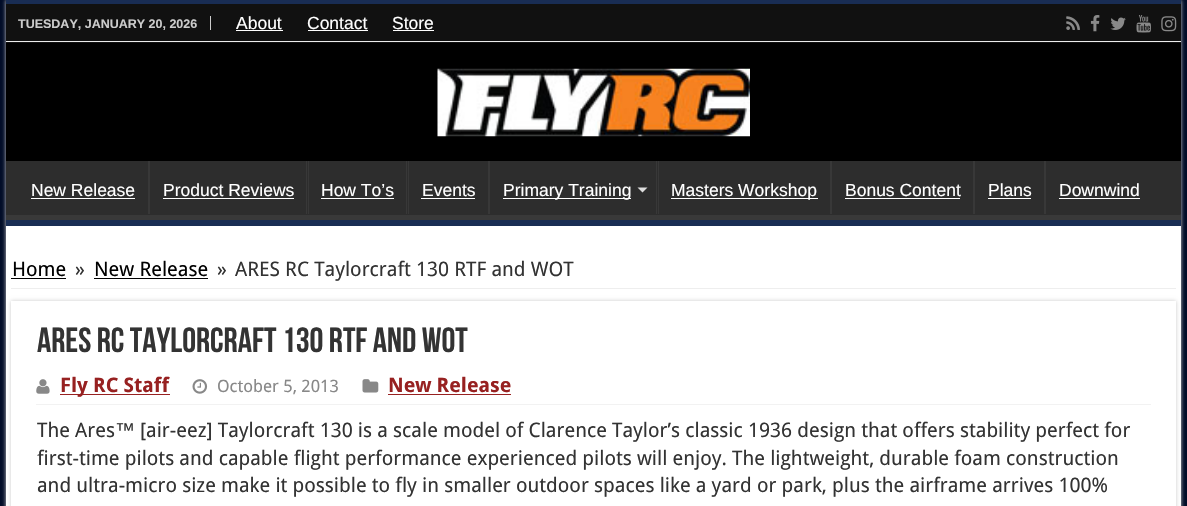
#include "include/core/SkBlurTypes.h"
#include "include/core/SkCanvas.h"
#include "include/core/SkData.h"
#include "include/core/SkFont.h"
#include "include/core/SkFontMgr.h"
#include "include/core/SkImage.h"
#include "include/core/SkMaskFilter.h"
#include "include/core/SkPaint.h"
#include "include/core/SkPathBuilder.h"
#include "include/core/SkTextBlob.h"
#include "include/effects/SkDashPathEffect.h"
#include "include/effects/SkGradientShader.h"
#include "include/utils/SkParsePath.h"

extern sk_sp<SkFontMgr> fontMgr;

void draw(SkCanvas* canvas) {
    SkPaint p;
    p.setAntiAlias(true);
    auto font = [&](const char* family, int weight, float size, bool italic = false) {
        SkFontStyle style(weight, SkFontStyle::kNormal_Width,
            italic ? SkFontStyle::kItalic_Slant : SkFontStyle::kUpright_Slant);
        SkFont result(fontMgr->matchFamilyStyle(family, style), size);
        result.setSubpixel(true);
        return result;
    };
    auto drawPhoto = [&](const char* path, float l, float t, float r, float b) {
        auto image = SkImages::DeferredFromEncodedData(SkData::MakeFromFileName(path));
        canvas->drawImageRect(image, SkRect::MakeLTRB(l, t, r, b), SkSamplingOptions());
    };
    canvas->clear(0xFF000B27);
    p.setColor(0xFFCACACA);
    p.setMaskFilter(SkMaskFilter::MakeBlur(kNormal_SkBlurStyle, 2));
    canvas->drawRect(SkRect::MakeLTRB(6, 0, 1181, 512), p);
    p.setMaskFilter(nullptr);
    {
        const struct { float l, t, r, b; SkColor color; } items[] = {
            {6, 226, 1181, 506, 0xFFFFFFFF},
            {6, 43, 1181, 161, 0xFF000000},
            {6, 0, 1181, 4, 0xFF192D54},
            {6, 4, 1181, 43, 0xFF111111},
            {6, 41, 1181, 42, 0xFFECECEC},
            {210, 16, 211, 30, 0xFFCCCCCC},
        };
        for (auto [l, t, r, b, color] : items) {
            p.setColor(color);
            canvas->drawRect(SkRect::MakeLTRB(l, t, r, b), p);
        }
    }
    auto font1 = font("Liberation Sans", 700, 12.5f);
    canvas->drawString("TUESDAY, JANUARY 20, 2026", 18, 28, font1, p);
    auto font2 = font("Liberation Sans", 400, 17.5f);
    p.setColor(0xFFFFFFFF);
    canvas->drawString("About", 236, 29, font2, p);
    canvas->drawRect(SkRect::MakeLTRB(236, 30, 283, 31), p);
    canvas->drawString("Contact", 307, 29, font2, p);
    canvas->drawRect(SkRect::MakeLTRB(308, 30, 368, 31), p);
    canvas->drawString("Store", 392, 29, font2, p);
    canvas->drawRect(SkRect::MakeLTRB(393, 30, 434, 31), p);
    drawPhoto("media/1.png", 1066, 16, 1080, 30);
    drawPhoto("media/2.png", 1090, 15, 1100, 32);
    drawPhoto("media/3.png", 1110, 17, 1126, 30);
    drawPhoto("media/4.png", 1136, 15, 1151, 33);
    drawPhoto("media/5.png", 1161, 16, 1177, 32);
    drawPhoto("media/6.png", 437, 68, 750, 137);
    p.setColor(0xFF2D2D2D);
    canvas->drawRect(SkRect::MakeLTRB(6, 161, 1181, 215), p);
    canvas->save();
    canvas->clipRect(SkRect::MakeLTRB(6, 161, 1181, 220));
    p.setColor(0xFF393939);
    canvas->drawPath(SkPathBuilder(SkPathFillType::kEvenOdd).moveTo(-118, 38).lineTo(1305, 38).lineTo(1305, 344).lineTo(-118, 344).close().moveTo(5, 154).lineTo(1180, 154).lineTo(1181, 155).lineTo(1181, 214).lineTo(1180, 215).lineTo(5, 215).lineTo(4, 214).lineTo(4, 155).cubicTo(4, 154, 4, 154, 5, 154).close().detach(), p);
    canvas->restore();
    p.setColor(0xFF192D54);
    canvas->drawRect(SkRect::MakeLTRB(6, 220, 1181, 226), p);
    p.setColor(0xFFFFFFFF);
    canvas->drawString("New Release", 31, 196, font2, p);
    canvas->drawRect(SkRect::MakeLTRB(31, 198, 135, 199), p);
    p.setColor(0xFF383838);
    canvas->drawRect(SkRect::MakeLTRB(148, 161, 150, 214), p);
    p.setColor(0xFFFFFFFF);
    canvas->drawString("Product Reviews", 163, 196, font2, p);
    {
        const struct { float l, t, r, b; SkColor color; } items[] = {
            {163, 198, 294, 199, 0xFFFFFFFF},
            {306, 161, 307, 214, 0xFF383838},
            {308, 161, 309, 214, 0xFF383838},
        };
        for (auto [l, t, r, b, color] : items) {
            p.setColor(color);
            canvas->drawRect(SkRect::MakeLTRB(l, t, r, b), p);
        }
    }
    p.setColor(0xFFFFFFFF);
    canvas->drawString("How To’s", 321, 196, font2, p);
    {
        const struct { float l, t, r, b; SkColor color; } items[] = {
            {321, 198, 394, 199, 0xFFFFFFFF},
            {406, 161, 407, 214, 0xFF383838},
            {408, 161, 409, 214, 0xFF383838},
        };
        for (auto [l, t, r, b, color] : items) {
            p.setColor(color);
            canvas->drawRect(SkRect::MakeLTRB(l, t, r, b), p);
        }
    }
    p.setColor(0xFFFFFFFF);
    canvas->drawString("Events", 422, 196, font2, p);
    {
        const struct { float l, t, r, b; SkColor color; } items[] = {
            {421, 198, 475, 199, 0xFFFFFFFF},
            {488, 161, 490, 214, 0xFF383838},
            {503, 198, 631, 199, 0xFFFFFFFF},
        };
        for (auto [l, t, r, b, color] : items) {
            p.setColor(color);
            canvas->drawRect(SkRect::MakeLTRB(l, t, r, b), p);
        }
    }
    canvas->drawString("Primary Training", 503, 196, font2, p);
    p.setColor(0xFFDDDDDD);
    canvas->drawPath(SkPathBuilder().moveTo(637.5f, 187.5f).lineTo(647.5f, 187.5f).lineTo(642.5f, 192.5f).close().detach(), p);
    {
        const struct { float l, t, r, b; SkColor color; } items[] = {
            {656, 161, 657, 214, 0xFF383838},
            {658, 161, 659, 214, 0xFF383838},
            {671, 198, 818, 199, 0xFFFFFFFF},
        };
        for (auto [l, t, r, b, color] : items) {
            p.setColor(color);
            canvas->drawRect(SkRect::MakeLTRB(l, t, r, b), p);
        }
    }
    canvas->drawString("Masters Workshop", 671, 196, font2, p);
    p.setColor(0xFF383838);
    canvas->drawRect(SkRect::MakeLTRB(830, 161, 832, 214), p);
    p.setColor(0xFFFFFFFF);
    canvas->drawString("Bonus Content", 845, 196, font2, p);
    canvas->drawRect(SkRect::MakeLTRB(845, 198, 960, 199), p);
    p.setColor(0xFF383838);
    canvas->drawRect(SkRect::MakeLTRB(973, 161, 975, 214), p);
    p.setColor(0xFFFFFFFF);
    canvas->drawString("Plans", 988, 196, font2, p);
    canvas->drawRect(SkRect::MakeLTRB(988, 198, 1031, 199), p);
    p.setColor(0xFF383838);
    canvas->drawRect(SkRect::MakeLTRB(1044, 161, 1046, 214), p);
    p.setColor(0xFFFFFFFF);
    canvas->drawString("Downwind", 1059, 196, font2, p);
    canvas->drawRect(SkRect::MakeLTRB(1059, 198, 1140, 199), p);
    p.setColor(0xFFEEEEEE);
    canvas->drawRect(SkRect::MakeLTRB(11, 288, 1176, 289), p);
    auto font3 = font("Droid Sans", 400, 20);
    p.setColor(0xFF000000);
    canvas->drawString("Home", 12, 276, font3, p);
    canvas->drawRect(SkRect::MakeLTRB(11, 278, 66, 279), p);
    p.setColor(0xFF333333);
    canvas->drawString("»", 75, 276, font3, p);
    p.setColor(0xFF000000);
    canvas->drawString("New Release", 94, 276, font3, p);
    canvas->drawRect(SkRect::MakeLTRB(94, 278, 208, 279), p);
    p.setColor(0xFF333333);
    canvas->drawString("»", 217, 276, font3, p);
    canvas->drawString("ARES RC Taylorcraft 130 RTF and WOT", 235, 276, font3, p);
    p.setColor(0xFFCACACA);
    p.setMaskFilter(SkMaskFilter::MakeBlur(kNormal_SkBlurStyle, 2));
    canvas->drawRect(SkRect::MakeLTRB(11, 301, 1176, 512), p);
    p.setMaskFilter(nullptr);
    p.setColor(0xFFFFFFFF);
    canvas->drawRect(SkRect::MakeLTRB(11, 301, 1176, 506), p);
    auto font4 = font("Bebas Neue", 700, 35);
    p.setColor(0xFF333333);
    canvas->drawString("ARES RC Taylorcraft 130 RTF and WOT", 37, 352, font4, p);
    p.setColor(0xFFF2F2F2);
    canvas->drawRect(SkRect::MakeLTRB(36, 404, 1151, 405), p);
    drawPhoto("media/7.png", 36, 379, 50, 394);
    p.setColor(0xFF972121);
    canvas->drawRect(SkRect::MakeLTRB(60, 394, 170, 395), p);
    auto font5 = font("Droid Sans", 700, 20);
    canvas->drawString("Fly RC Staff", 60, 392, font5, p);
    drawPhoto("media/8.png", 192, 379, 208, 394);
    auto font6 = font("Droid Sans", 400, 17);
    p.setColor(0xFF888888);
    canvas->drawString("October 5, 2013", 217, 392, font6, p);
    drawPhoto("media/9.png", 362, 379, 379, 393);
    p.setColor(0xFF972121);
    canvas->drawString("New Release", 388, 392, font5, p);
    canvas->drawRect(SkRect::MakeLTRB(388, 394, 511, 395), p);
    p.setColor(0xFF333333);
    canvas->drawString("The Ares", 37, 437, font3, p);
    auto font7 = font("Liberation Sans", 400, 20);
    canvas->drawString("™", 115, 437, font7, p);
    {
        const struct { const char* s; float x, y; } items[] = {
            {"[air-eez] Taylorcraft 130 is a scale model of Clarence Taylor’s classic 1936 design that offers stability perfect for", 140, 437},
            {"first-time pilots and capable flight performance experienced pilots will enjoy. The lightweight, durable foam construction", 37, 465},
            {"and ultra-micro size make it possible to fly in smaller outdoor spaces like a yard or park, plus the airframe arrives 100%", 37, 492},
        };
        for (auto [s, x, y] : items) {
            canvas->drawString(s, x, y, font3, p);
        }
    }
}
